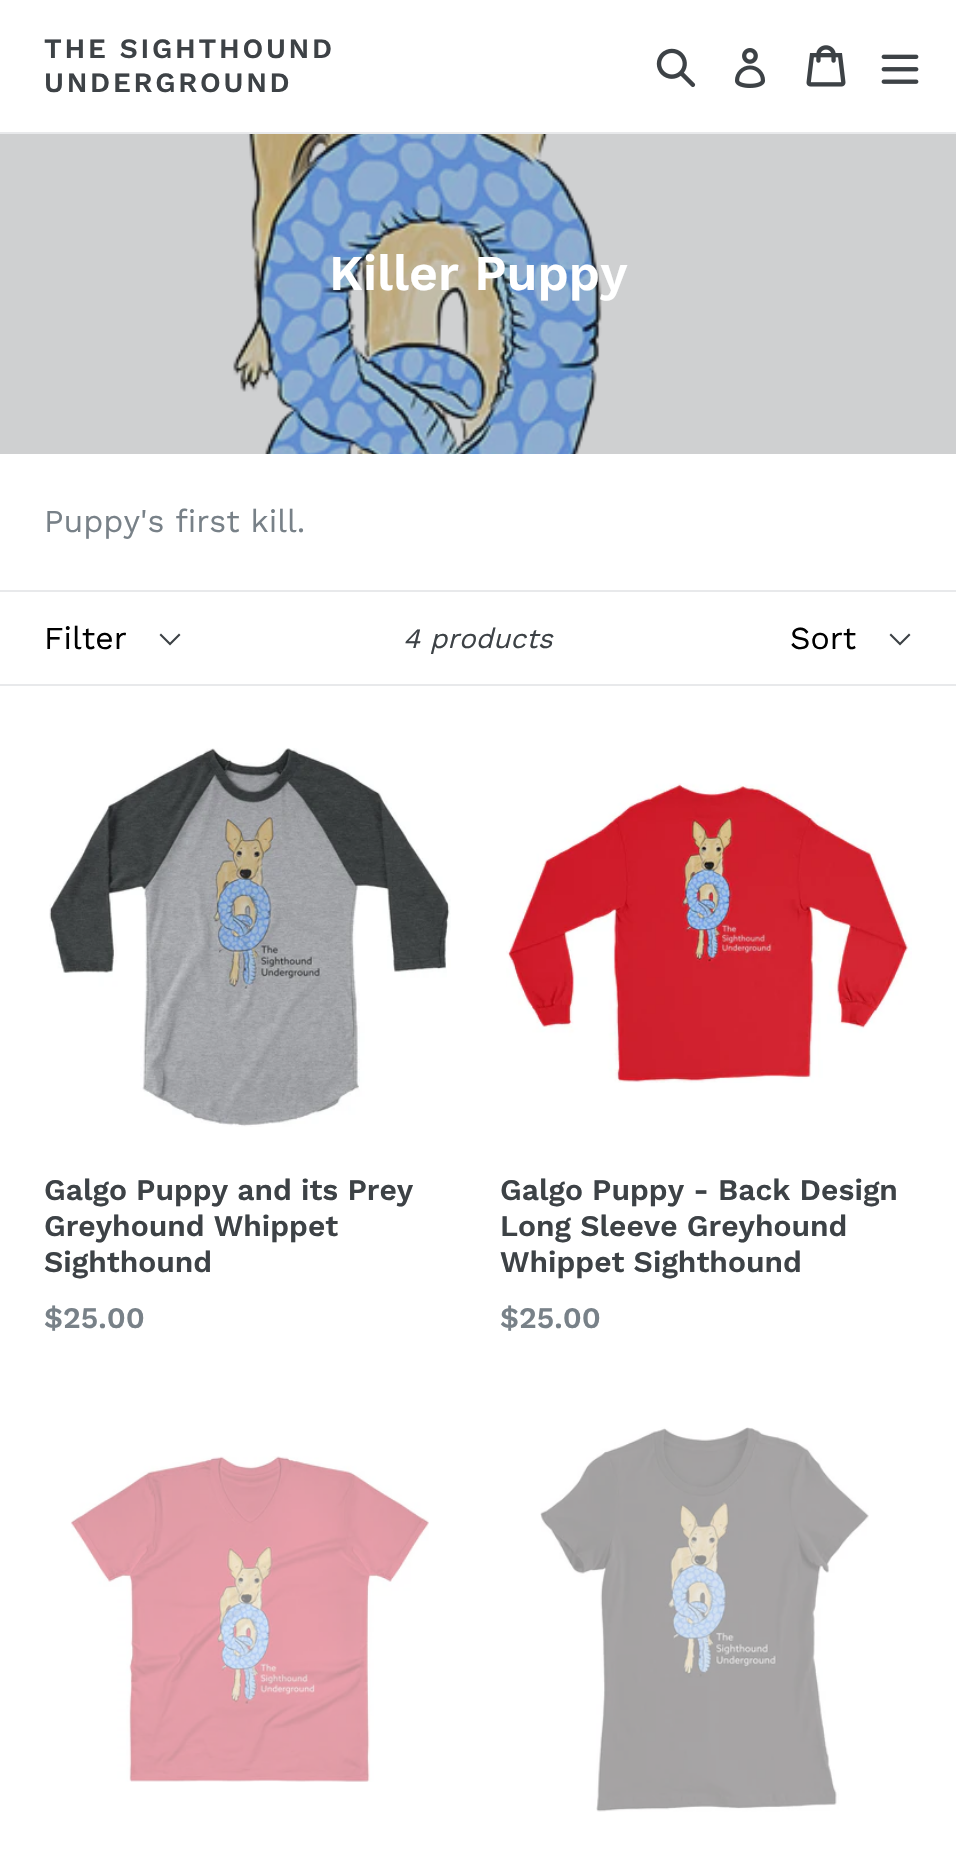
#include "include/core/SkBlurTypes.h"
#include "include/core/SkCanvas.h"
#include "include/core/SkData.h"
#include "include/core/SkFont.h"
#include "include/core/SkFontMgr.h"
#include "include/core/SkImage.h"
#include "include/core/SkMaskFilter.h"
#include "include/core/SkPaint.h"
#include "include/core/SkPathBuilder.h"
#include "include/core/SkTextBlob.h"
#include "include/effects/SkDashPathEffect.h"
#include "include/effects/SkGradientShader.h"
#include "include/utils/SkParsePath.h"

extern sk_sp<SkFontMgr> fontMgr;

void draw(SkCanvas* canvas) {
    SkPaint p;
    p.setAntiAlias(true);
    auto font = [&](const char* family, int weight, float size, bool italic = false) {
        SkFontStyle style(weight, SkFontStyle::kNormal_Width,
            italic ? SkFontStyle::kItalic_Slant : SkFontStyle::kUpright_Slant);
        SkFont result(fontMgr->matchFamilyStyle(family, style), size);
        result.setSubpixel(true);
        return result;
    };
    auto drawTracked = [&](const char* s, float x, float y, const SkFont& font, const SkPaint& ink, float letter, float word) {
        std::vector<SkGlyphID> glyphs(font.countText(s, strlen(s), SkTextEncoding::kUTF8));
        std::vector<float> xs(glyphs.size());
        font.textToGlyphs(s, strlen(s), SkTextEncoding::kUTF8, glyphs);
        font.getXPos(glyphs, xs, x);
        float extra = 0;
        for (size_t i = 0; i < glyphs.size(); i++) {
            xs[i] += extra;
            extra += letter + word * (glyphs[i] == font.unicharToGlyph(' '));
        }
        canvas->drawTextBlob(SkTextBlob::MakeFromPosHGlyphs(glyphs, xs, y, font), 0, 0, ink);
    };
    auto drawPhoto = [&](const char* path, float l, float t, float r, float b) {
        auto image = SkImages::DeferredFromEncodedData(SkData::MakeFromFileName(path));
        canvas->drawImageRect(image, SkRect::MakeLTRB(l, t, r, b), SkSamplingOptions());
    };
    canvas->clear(0xFFFFFFFF);
    p.setColor(0xFFCFD0D1);
    canvas->drawRect(SkRect::MakeLTRB(0, 134, 956, 454), p);
    p.setColor(0xFFE8E9EB);
    canvas->drawRect(SkRect::MakeLTRB(0, 132, 956, 134), p);
    auto font1 = font("Work Sans", 600, 28);
    p.setColor(0xFF3D4246);
    drawTracked("THE SIGHTHOUND", 44, 58, font1, p, 2.75f, 0);
    drawTracked("UNDERGROUND", 44, 92, font1, p, 2.75f, 0);
    drawPhoto("media/1.png", 656, 48, 696, 88);
    drawPhoto("media/2.png", 735, 48, 766, 88);
    drawPhoto("media/3.png", 806, 45, 846, 87);
    drawPhoto("media/4.png", 881, 54, 919, 84);
    drawPhoto("media/5.png", 233, 134, 602, 454);
    auto font2 = font("Work Sans", 600, 50);
    p.setColor(0xFFFFFFFF);
    canvas->drawString("Killer Puppy", 329, 290, font2, p);
    auto font3 = font("Work Sans", 400, 32);
    p.setColor(0xFF788188);
    canvas->drawString("Puppy's first kill.", 44, 532, font3, p);
    p.setColor(0xFFE8E9EB);
    canvas->drawRect(SkRect::MakeLTRB(0, 590, 956, 592), p);
    canvas->drawRect(SkRect::MakeLTRB(0, 684, 956, 686), p);
    p.setColor(0xFF3D4246);
    canvas->drawPath(SkPathBuilder().moveTo(170, 645.5f).lineTo(159.5f, 635).lineTo(161, 633.5f).lineTo(170, 642.5f).lineTo(179, 633.5f).lineTo(180.5f, 635).close().detach(), p);
    p.setColor(0xFF000000);
    canvas->drawString("Filter", 44, 649, font3, p);
    auto font4 = font("Work Sans", 400, 28, true);
    p.setColor(0xFF3D4246);
    canvas->drawString("4 products", 403, 648, font4, p);
    canvas->drawPath(SkPathBuilder().moveTo(900, 645.5f).lineTo(889.5f, 635).lineTo(891, 633.5f).lineTo(900, 642.5f).lineTo(909, 633.5f).lineTo(910.5f, 635).close().detach(), p);
    p.setColor(0xFF000000);
    canvas->drawString("Sort", 790, 649, font3, p);
    drawPhoto("media/6.png", 49, 748, 451, 1127);
    auto font5 = font("Work Sans", 600, 30);
    p.setColor(0xFF3D4246);
    {
        const struct { const char* s; float x, y; } items[] = {
            {"Galgo Puppy and its Prey", 44, 1200},
            {"Greyhound Whippet", 44, 1236},
            {"Sighthound", 44, 1272},
        };
        for (auto [s, x, y] : items) {
            canvas->drawString(s, x, y, font5, p);
        }
    }
    p.setColor(0xFF788188);
    canvas->drawString("$25.00", 44, 1328, font5, p);
    drawPhoto("media/7.png", 506, 783, 912, 1083);
    p.setColor(0xFF3D4246);
    {
        const struct { const char* s; float x, y; } items[] = {
            {"Galgo Puppy - Back Design", 500, 1200},
            {"Long Sleeve Greyhound", 500, 1236},
            {"Whippet Sighthound", 500, 1272},
        };
        for (auto [s, x, y] : items) {
            canvas->drawString(s, x, y, font5, p);
        }
    }
    p.setColor(0xFF788188);
    canvas->drawString("$25.00", 500, 1328, font5, p);
    drawPhoto("media/8.png", 70, 1456, 429, 1782);
    drawPhoto("media/9.png", 540, 1427, 869, 1812);
}
